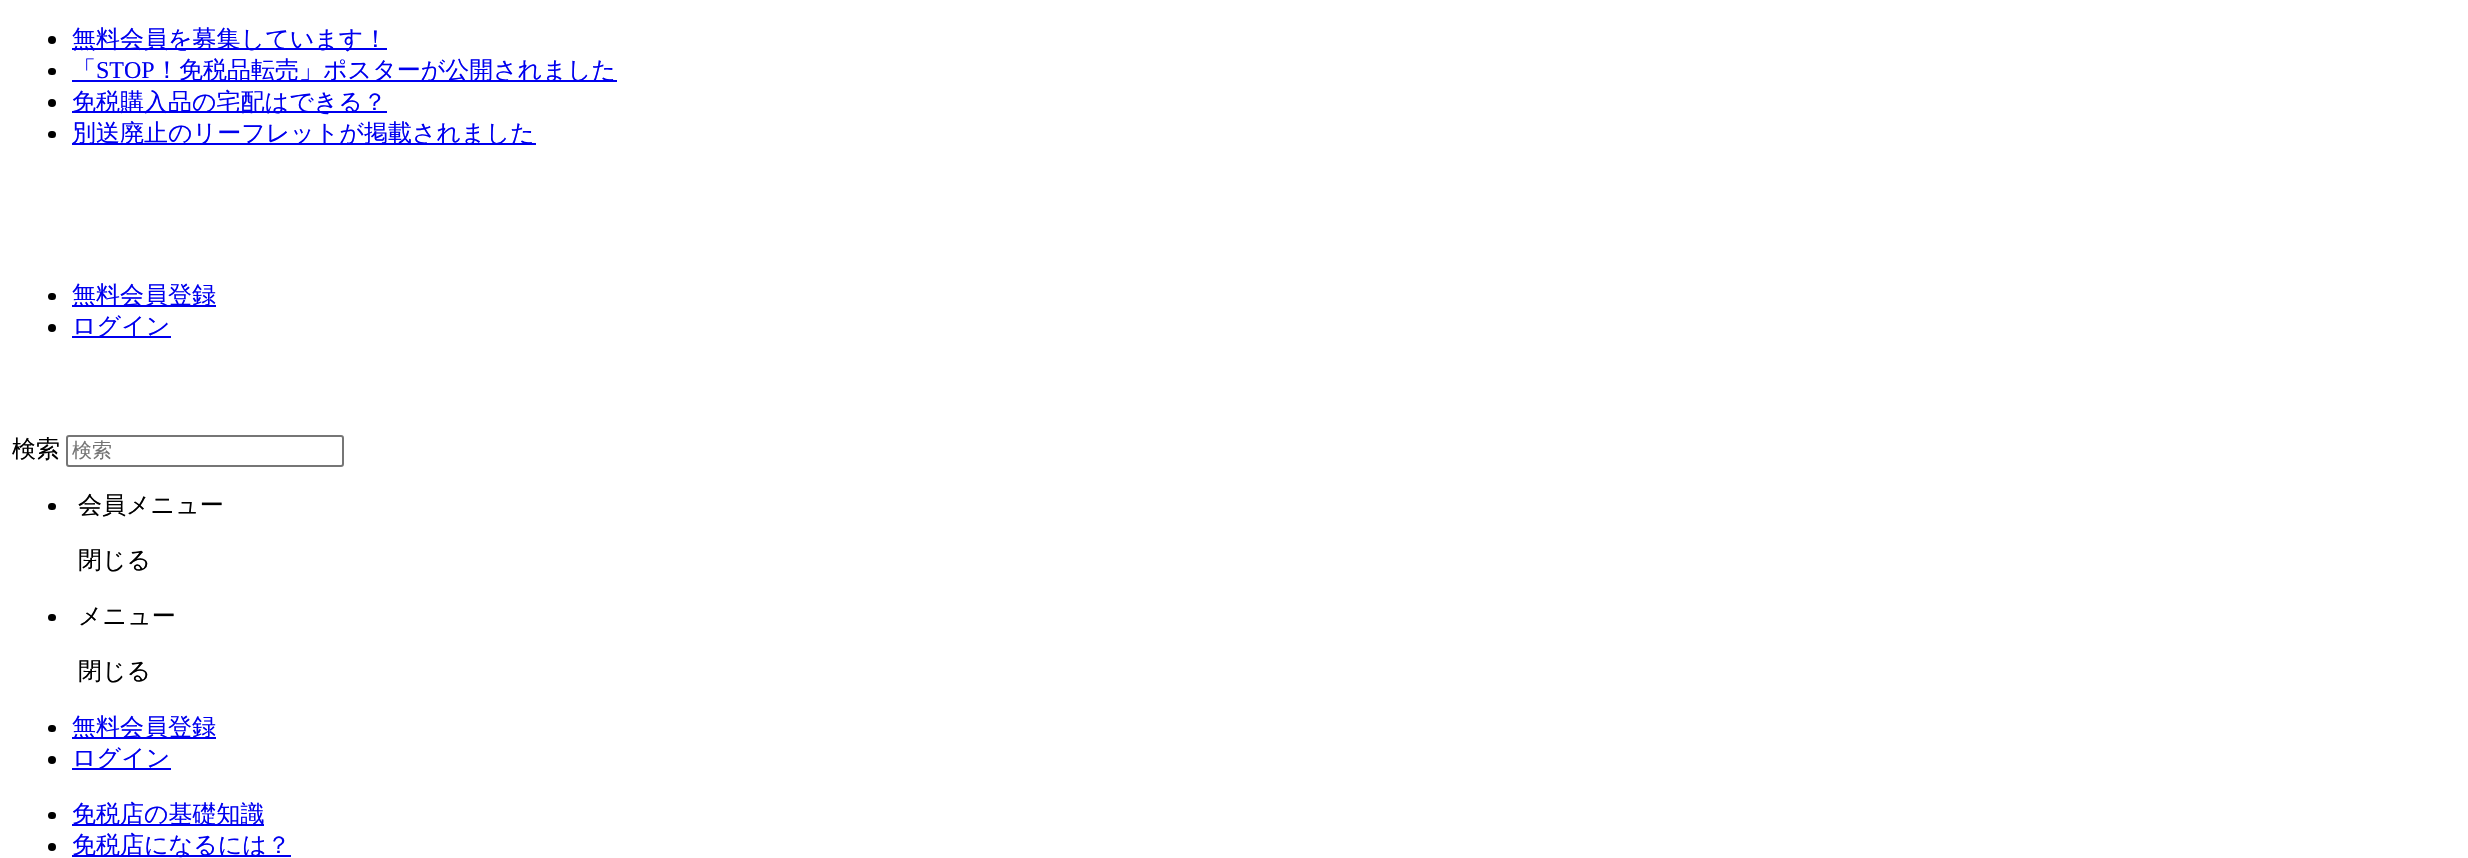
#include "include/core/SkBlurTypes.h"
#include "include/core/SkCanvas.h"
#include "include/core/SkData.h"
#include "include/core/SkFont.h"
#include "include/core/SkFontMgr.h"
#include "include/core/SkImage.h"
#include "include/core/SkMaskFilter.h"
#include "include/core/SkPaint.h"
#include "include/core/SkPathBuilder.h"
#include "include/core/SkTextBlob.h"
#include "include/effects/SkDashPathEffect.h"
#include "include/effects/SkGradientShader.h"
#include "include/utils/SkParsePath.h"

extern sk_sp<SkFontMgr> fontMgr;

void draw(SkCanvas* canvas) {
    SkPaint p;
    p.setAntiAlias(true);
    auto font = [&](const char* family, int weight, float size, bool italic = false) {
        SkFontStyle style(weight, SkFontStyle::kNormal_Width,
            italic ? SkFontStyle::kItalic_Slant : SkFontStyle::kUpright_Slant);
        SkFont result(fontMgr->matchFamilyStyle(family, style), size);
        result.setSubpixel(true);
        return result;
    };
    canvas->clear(0xFFFFFFFF);
    p.setColor(0xFF000000);
    canvas->drawCircle(52, 40, 4, p);
    p.setColor(0xFF0000EE);
    canvas->drawRect(SkRect::MakeLTRB(72, 48, 387, 50), p);
    auto font1 = font("WenQuanYi Zen Hei", 500, 24);
    canvas->drawString("無料会員を募集しています！", 72, 47, font1, p);
    p.setColor(0xFF000000);
    canvas->drawRoundRect(SkRect::MakeLTRB(48, 68, 56, 75), 3.5f, 3.5f, p);
    p.setColor(0xFF0000EE);
    canvas->drawString("「", 72, 78, font1, p);
    auto font2 = font("Liberation Serif", 400, 24);
    canvas->drawString("STOP", 96, 78, font2, p);
    canvas->drawRect(SkRect::MakeLTRB(72, 80, 617, 82), p);
    canvas->drawString("！免税品転売」ポスターが公開されました", 155, 78, font1, p);
    p.setColor(0xFF000000);
    canvas->drawCircle(52, 103, 4, p);
    p.setColor(0xFF0000EE);
    canvas->drawRect(SkRect::MakeLTRB(72, 111, 387, 113), p);
    canvas->drawString("免税購入品の宅配はできる？", 72, 110, font1, p);
    p.setColor(0xFF000000);
    canvas->drawRoundRect(SkRect::MakeLTRB(48, 131, 56, 138), 3.5f, 3.5f, p);
    p.setColor(0xFF0000EE);
    canvas->drawRect(SkRect::MakeLTRB(72, 143, 536, 145), p);
    canvas->drawString("別送廃止のリーフレットが掲載されました", 72, 141, font1, p);
    p.setColor(0xFF000000);
    canvas->drawRoundRect(SkRect::MakeLTRB(48, 293, 56, 300), 3.5f, 3.5f, p);
    p.setColor(0xFF0000EE);
    canvas->drawRect(SkRect::MakeLTRB(72, 305, 216, 307), p);
    canvas->drawString("無料会員登録", 72, 303, font1, p);
    p.setColor(0xFF000000);
    canvas->drawCircle(52, 328, 4, p);
    p.setColor(0xFF0000EE);
    canvas->drawRect(SkRect::MakeLTRB(72, 336, 171, 338), p);
    canvas->drawString("ログイン", 72, 334, font1, p);
    p.setColor(0xFF000000);
    canvas->drawString("検索", 12, 457, font1, p);
    p.setStyle(SkPaint::kStroke_Style);
    p.setStrokeWidth(2);
    p.setColor(0xFF767676);
    canvas->drawRoundRect(SkRect::MakeLTRB(67, 436, 343, 466), 2, 2, p);
    auto font3 = font("WenQuanYi Zen Hei", 500, 20);
    p.setStyle(SkPaint::kFill_Style);
    p.setColor(0xFF757575);
    canvas->drawString("検索", 72, 457, font3, p);
    p.setColor(0xFF000000);
    canvas->drawRoundRect(SkRect::MakeLTRB(48, 503, 56, 510), 3.5f, 3.5f, p);
    canvas->drawString("会員メニュー", 78, 513, font1, p);
    canvas->drawString("閉じる", 78, 568, font1, p);
    canvas->drawRoundRect(SkRect::MakeLTRB(48, 614, 56, 621), 3.5f, 3.5f, p);
    canvas->drawString("メニュー", 78, 624, font1, p);
    canvas->drawString("閉じる", 78, 679, font1, p);
    canvas->drawRoundRect(SkRect::MakeLTRB(48, 725, 56, 732), 3.5f, 3.5f, p);
    p.setColor(0xFF0000EE);
    canvas->drawRect(SkRect::MakeLTRB(72, 737, 216, 739), p);
    canvas->drawString("無料会員登録", 72, 735, font1, p);
    p.setColor(0xFF000000);
    canvas->drawCircle(52, 760, 4, p);
    p.setColor(0xFF0000EE);
    canvas->drawRect(SkRect::MakeLTRB(72, 768, 171, 770), p);
    canvas->drawString("ログイン", 72, 766, font1, p);
    p.setColor(0xFF000000);
    canvas->drawRoundRect(SkRect::MakeLTRB(48, 812, 56, 819), 3.5f, 3.5f, p);
    p.setColor(0xFF0000EE);
    canvas->drawRect(SkRect::MakeLTRB(72, 824, 264, 826), p);
    canvas->drawString("免税店の基礎知識", 72, 822, font1, p);
    p.setColor(0xFF000000);
    canvas->drawCircle(52, 847, 4, p);
    p.setColor(0xFF0000EE);
    canvas->drawRect(SkRect::MakeLTRB(72, 855, 291, 857), p);
    canvas->drawString("免税店になるには？", 72, 853, font1, p);
}
